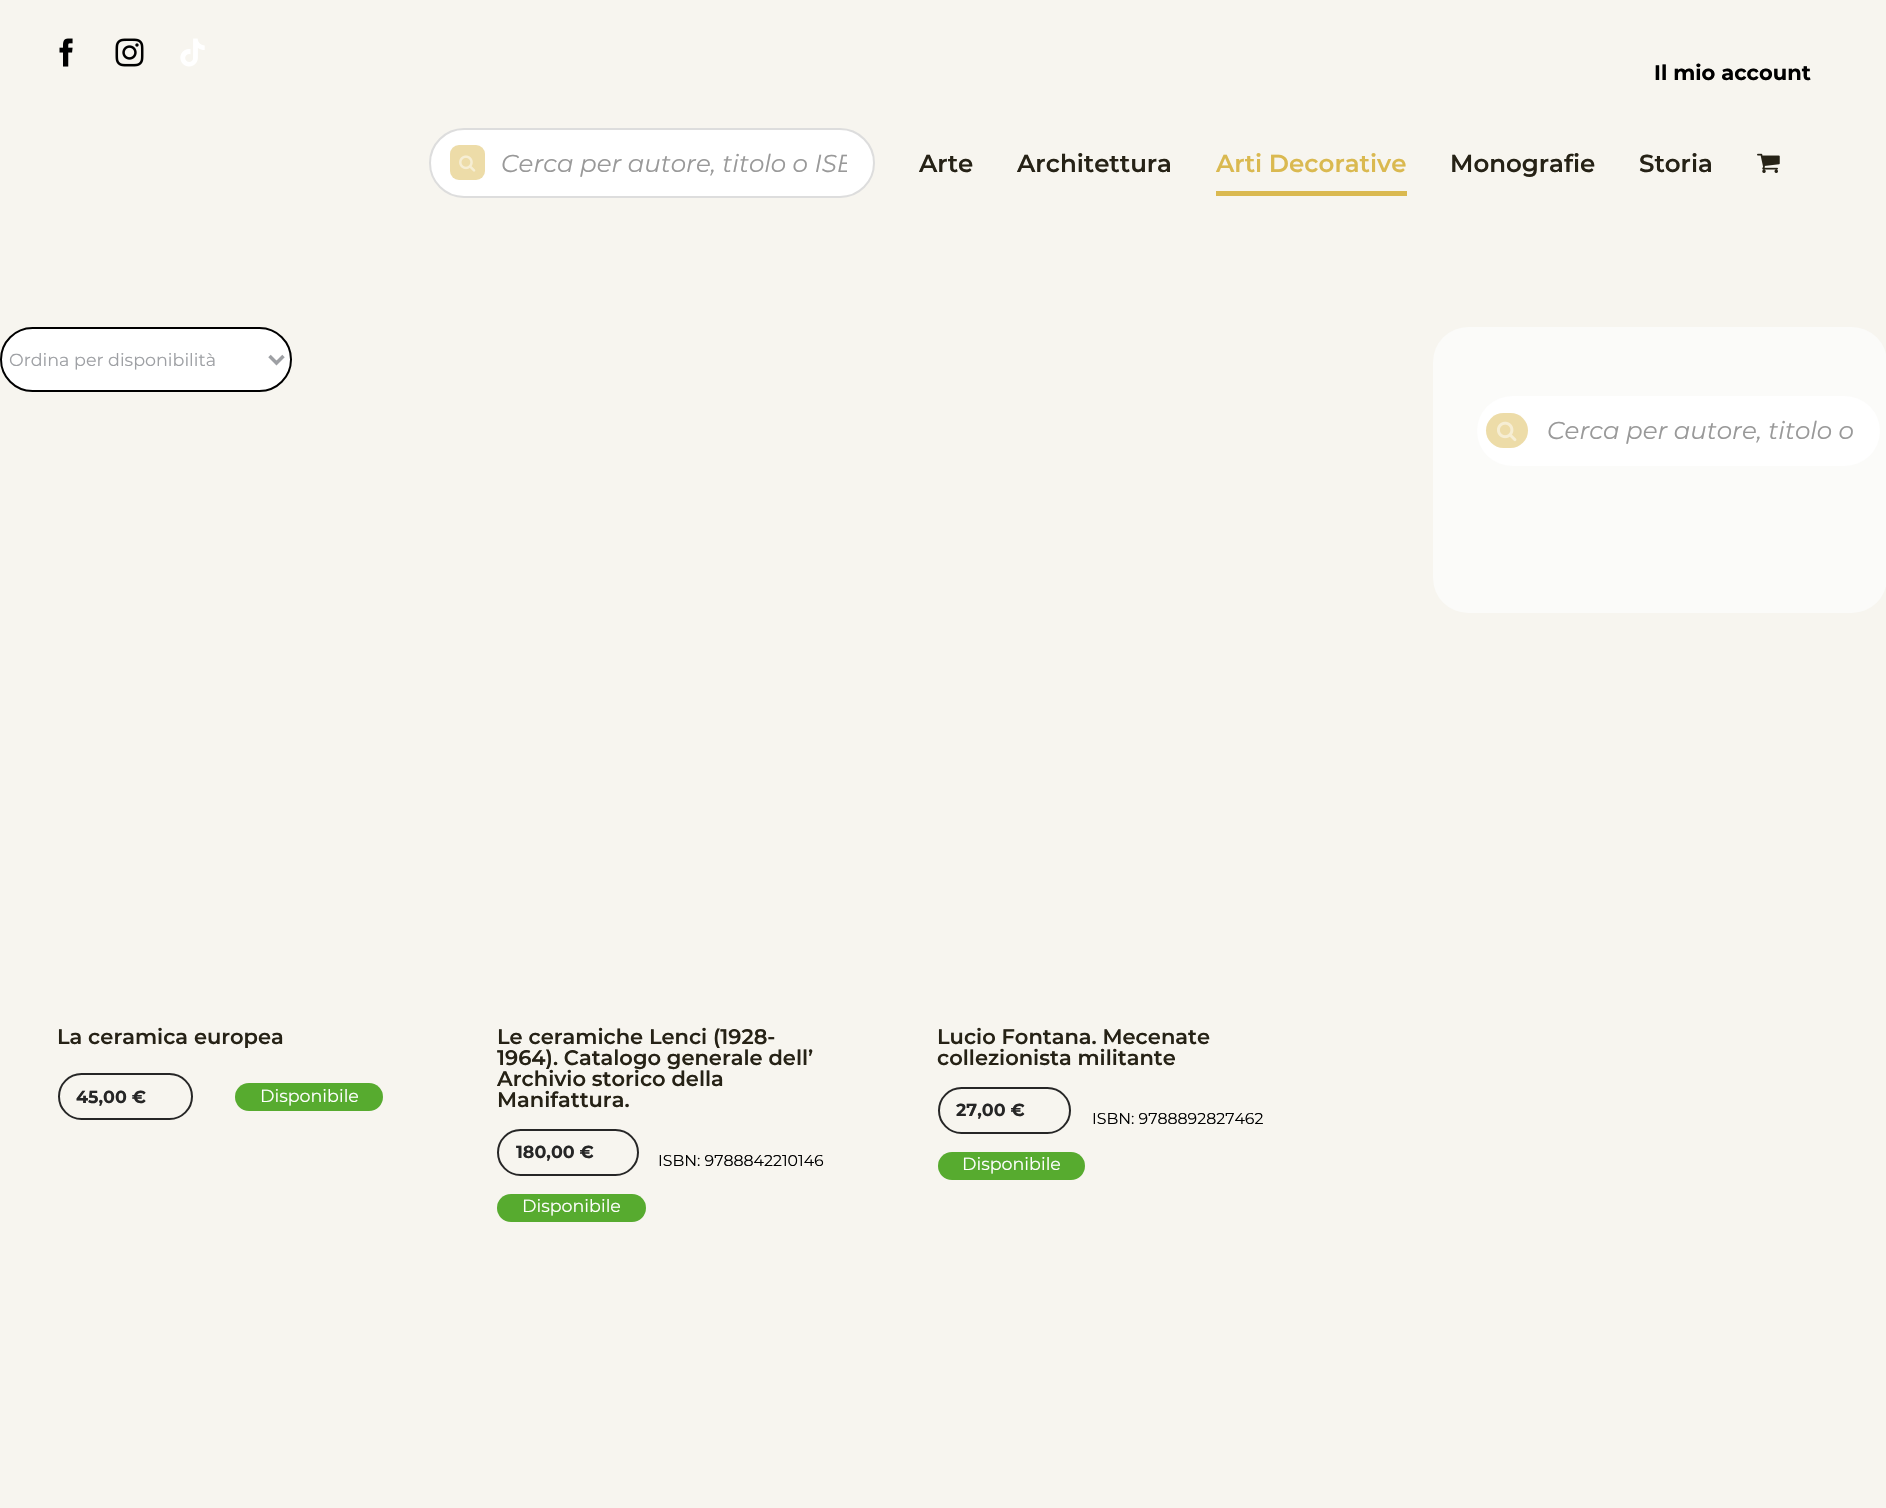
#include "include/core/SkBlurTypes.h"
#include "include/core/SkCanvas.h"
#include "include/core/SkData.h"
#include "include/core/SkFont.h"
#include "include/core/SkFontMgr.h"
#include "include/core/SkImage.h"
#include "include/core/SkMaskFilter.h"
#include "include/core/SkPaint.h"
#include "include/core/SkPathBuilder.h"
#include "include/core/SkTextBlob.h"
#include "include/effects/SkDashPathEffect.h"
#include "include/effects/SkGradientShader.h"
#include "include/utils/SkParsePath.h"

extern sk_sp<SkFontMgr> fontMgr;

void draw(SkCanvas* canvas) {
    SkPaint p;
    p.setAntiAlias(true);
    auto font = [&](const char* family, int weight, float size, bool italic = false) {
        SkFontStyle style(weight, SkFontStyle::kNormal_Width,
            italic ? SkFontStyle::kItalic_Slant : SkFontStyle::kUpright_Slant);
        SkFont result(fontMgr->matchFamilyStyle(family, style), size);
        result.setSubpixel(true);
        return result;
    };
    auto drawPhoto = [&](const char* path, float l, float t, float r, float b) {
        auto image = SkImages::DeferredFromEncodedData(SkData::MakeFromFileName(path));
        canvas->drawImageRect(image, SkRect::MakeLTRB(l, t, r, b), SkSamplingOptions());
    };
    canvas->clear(0xFFF7F5EF);
    drawPhoto("media/1.png", 59, 38, 73, 67);
    drawPhoto("media/2.png", 115, 38, 144, 67);
    drawPhoto("media/3.png", 180, 38, 205, 67);
    auto font1 = font("Montserrat", 700, 21);
    p.setColor(0xFF000000);
    canvas->drawString("Il mio account", 1654, 80, font1, p);
    p.setColor(0xFFFFFFFF);
    canvas->drawRoundRect(SkRect::MakeLTRB(430, 129, 874, 197), 34, 34, p);
    p.setStyle(SkPaint::kStroke_Style);
    p.setStrokeWidth(2);
    p.setColor(0xFFDDDDDD);
    canvas->drawRoundRect(SkRect::MakeLTRB(430, 129, 874, 197), 34, 34, p);
    p.setStyle(SkPaint::kFill_Style);
    p.setColor(0xFFEDDCA8);
    canvas->drawRoundRect(SkRect::MakeLTRB(450, 145, 485, 180), 9, 9, p);
    drawPhoto("media/4.png", 459, 155, 476, 172);
    canvas->save();
    canvas->clipRect(SkRect::MakeLTRB(501, 147, 847, 179));
    auto font2 = font("Montserrat", 400, 24.5f, true);
    p.setColor(0xFF999999);
    canvas->drawString("Cerca per autore, titolo o ISB", 501, 172, font2, p);
    canvas->restore();
    auto font3 = font("Montserrat", 600, 24.5f);
    p.setColor(0xFF262216);
    canvas->drawString("Arte", 919, 172, font3, p);
    canvas->drawString("Architettura", 1017, 172, font3, p);
    p.setColor(0xFFDAB950);
    canvas->drawString("Arti Decorative", 1216, 172, font3, p);
    canvas->drawRect(SkRect::MakeLTRB(1216, 191, 1407, 196), p);
    p.setColor(0xFF262216);
    canvas->drawString("Monografie", 1450, 172, font3, p);
    canvas->drawString("Storia", 1639, 172, font3, p);
    drawPhoto("media/5.png", 1757, 153, 1780, 173);
    p.setColor(0xFFFFFFFF);
    canvas->drawRoundRect(SkRect::MakeLTRB(1, 328, 291, 391), 31.5f, 31.5f, p);
    p.setStyle(SkPaint::kStroke_Style);
    p.setColor(0xFF000000);
    canvas->drawRoundRect(SkRect::MakeLTRB(1, 328, 291, 391), 31.5f, 31.5f, p);
    p.setStrokeWidth(3.5f);
    p.setColor(0xFF9EA0A4);
    canvas->drawPath(SkPathBuilder().moveTo(269.5f, 356).lineTo(276.5f, 363).lineTo(283.5f, 356).detach(), p);
    auto font4 = font("Montserrat", 400, 17.5f);
    p.setStyle(SkPaint::kFill_Style);
    canvas->drawString("Ordina per disponibilità", 9, 366, font4, p);
    auto font5 = font("Montserrat", 600, 21);
    p.setColor(0xFF262216);
    canvas->drawString("La ceramica europea", 57, 1044, font5, p);
    p.setStyle(SkPaint::kStroke_Style);
    p.setStrokeWidth(2);
    p.setColor(0xFF262626);
    canvas->drawRoundRect(SkRect::MakeLTRB(59, 1074, 192, 1119), 22.5f, 22.5f, p);
    auto font6 = font("Montserrat", 700, 17.5f);
    p.setStyle(SkPaint::kFill_Style);
    canvas->drawString("45,00 €", 76, 1103, font6, p);
    p.setColor(0xFF57AB2F);
    canvas->drawRoundRect(SkRect::MakeLTRB(235, 1083, 383, 1111), 14, 14, p);
    p.setColor(0xFFFFFFFF);
    canvas->drawString("Disponibile", 260, 1102, font4, p);
    p.setColor(0xFF262216);
    {
        const struct { const char* s; float x, y; } items[] = {
            {"Le ceramiche Lenci (1928-", 497, 1044},
            {"1964). Catalogo generale dell’", 497, 1065},
            {"Archivio storico della", 497, 1086},
            {"Manifattura.", 497, 1107},
        };
        for (auto [s, x, y] : items) {
            canvas->drawString(s, x, y, font5, p);
        }
    }
    p.setStyle(SkPaint::kStroke_Style);
    p.setColor(0xFF262626);
    canvas->drawRoundRect(SkRect::MakeLTRB(498, 1130, 638, 1175), 22.5f, 22.5f, p);
    p.setStyle(SkPaint::kFill_Style);
    canvas->drawString("180,00 €", 516, 1158, font6, p);
    auto font7 = font("Montserrat", 400, 15.75f);
    p.setColor(0xFF000000);
    canvas->drawString("ISBN: 9788842210146", 658, 1166, font7, p);
    p.setColor(0xFF57AB2F);
    canvas->drawRoundRect(SkRect::MakeLTRB(497, 1194, 646, 1222), 14, 14, p);
    p.setColor(0xFFFFFFFF);
    canvas->drawString("Disponibile", 522, 1212, font4, p);
    p.setColor(0xFF262216);
    canvas->drawString("Lucio Fontana. Mecenate", 937, 1044, font5, p);
    canvas->drawString("collezionista militante", 937, 1065, font5, p);
    p.setStyle(SkPaint::kStroke_Style);
    p.setColor(0xFF262626);
    canvas->drawRoundRect(SkRect::MakeLTRB(939, 1088, 1070, 1133), 22.5f, 22.5f, p);
    p.setStyle(SkPaint::kFill_Style);
    canvas->drawString("27,00 €", 956, 1116, font6, p);
    p.setColor(0xFF000000);
    canvas->drawString("ISBN: 9788892827462", 1092, 1124, font7, p);
    p.setColor(0xFF57AB2F);
    canvas->drawRoundRect(SkRect::MakeLTRB(938, 1152, 1085, 1180), 14, 14, p);
    p.setColor(0xFFFFFFFF);
    canvas->drawString("Disponibile", 962, 1170, font4, p);
    p.setColor(0xFFFBFBF9);
    canvas->drawRoundRect(SkRect::MakeLTRB(1433, 327, 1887, 613), 35, 35, p);
    p.setColor(0xFFFFFFFF);
    canvas->drawRoundRect(SkRect::MakeLTRB(1477, 396, 1880, 466), 35, 35, p);
    p.setColor(0xFFEDDCA8);
    canvas->drawRoundRect(SkRect::MakeLTRB(1486, 413, 1528, 448), 17.5f, 17.5f, p);
    drawPhoto("media/6.png", 1497, 421, 1517, 442);
    canvas->save();
    canvas->clipRect(SkRect::MakeLTRB(1547, 415, 1853, 446));
    p.setColor(0xFF999999);
    canvas->drawString("Cerca per autore, titolo o", 1547, 439, font2, p);
    canvas->restore();
}
